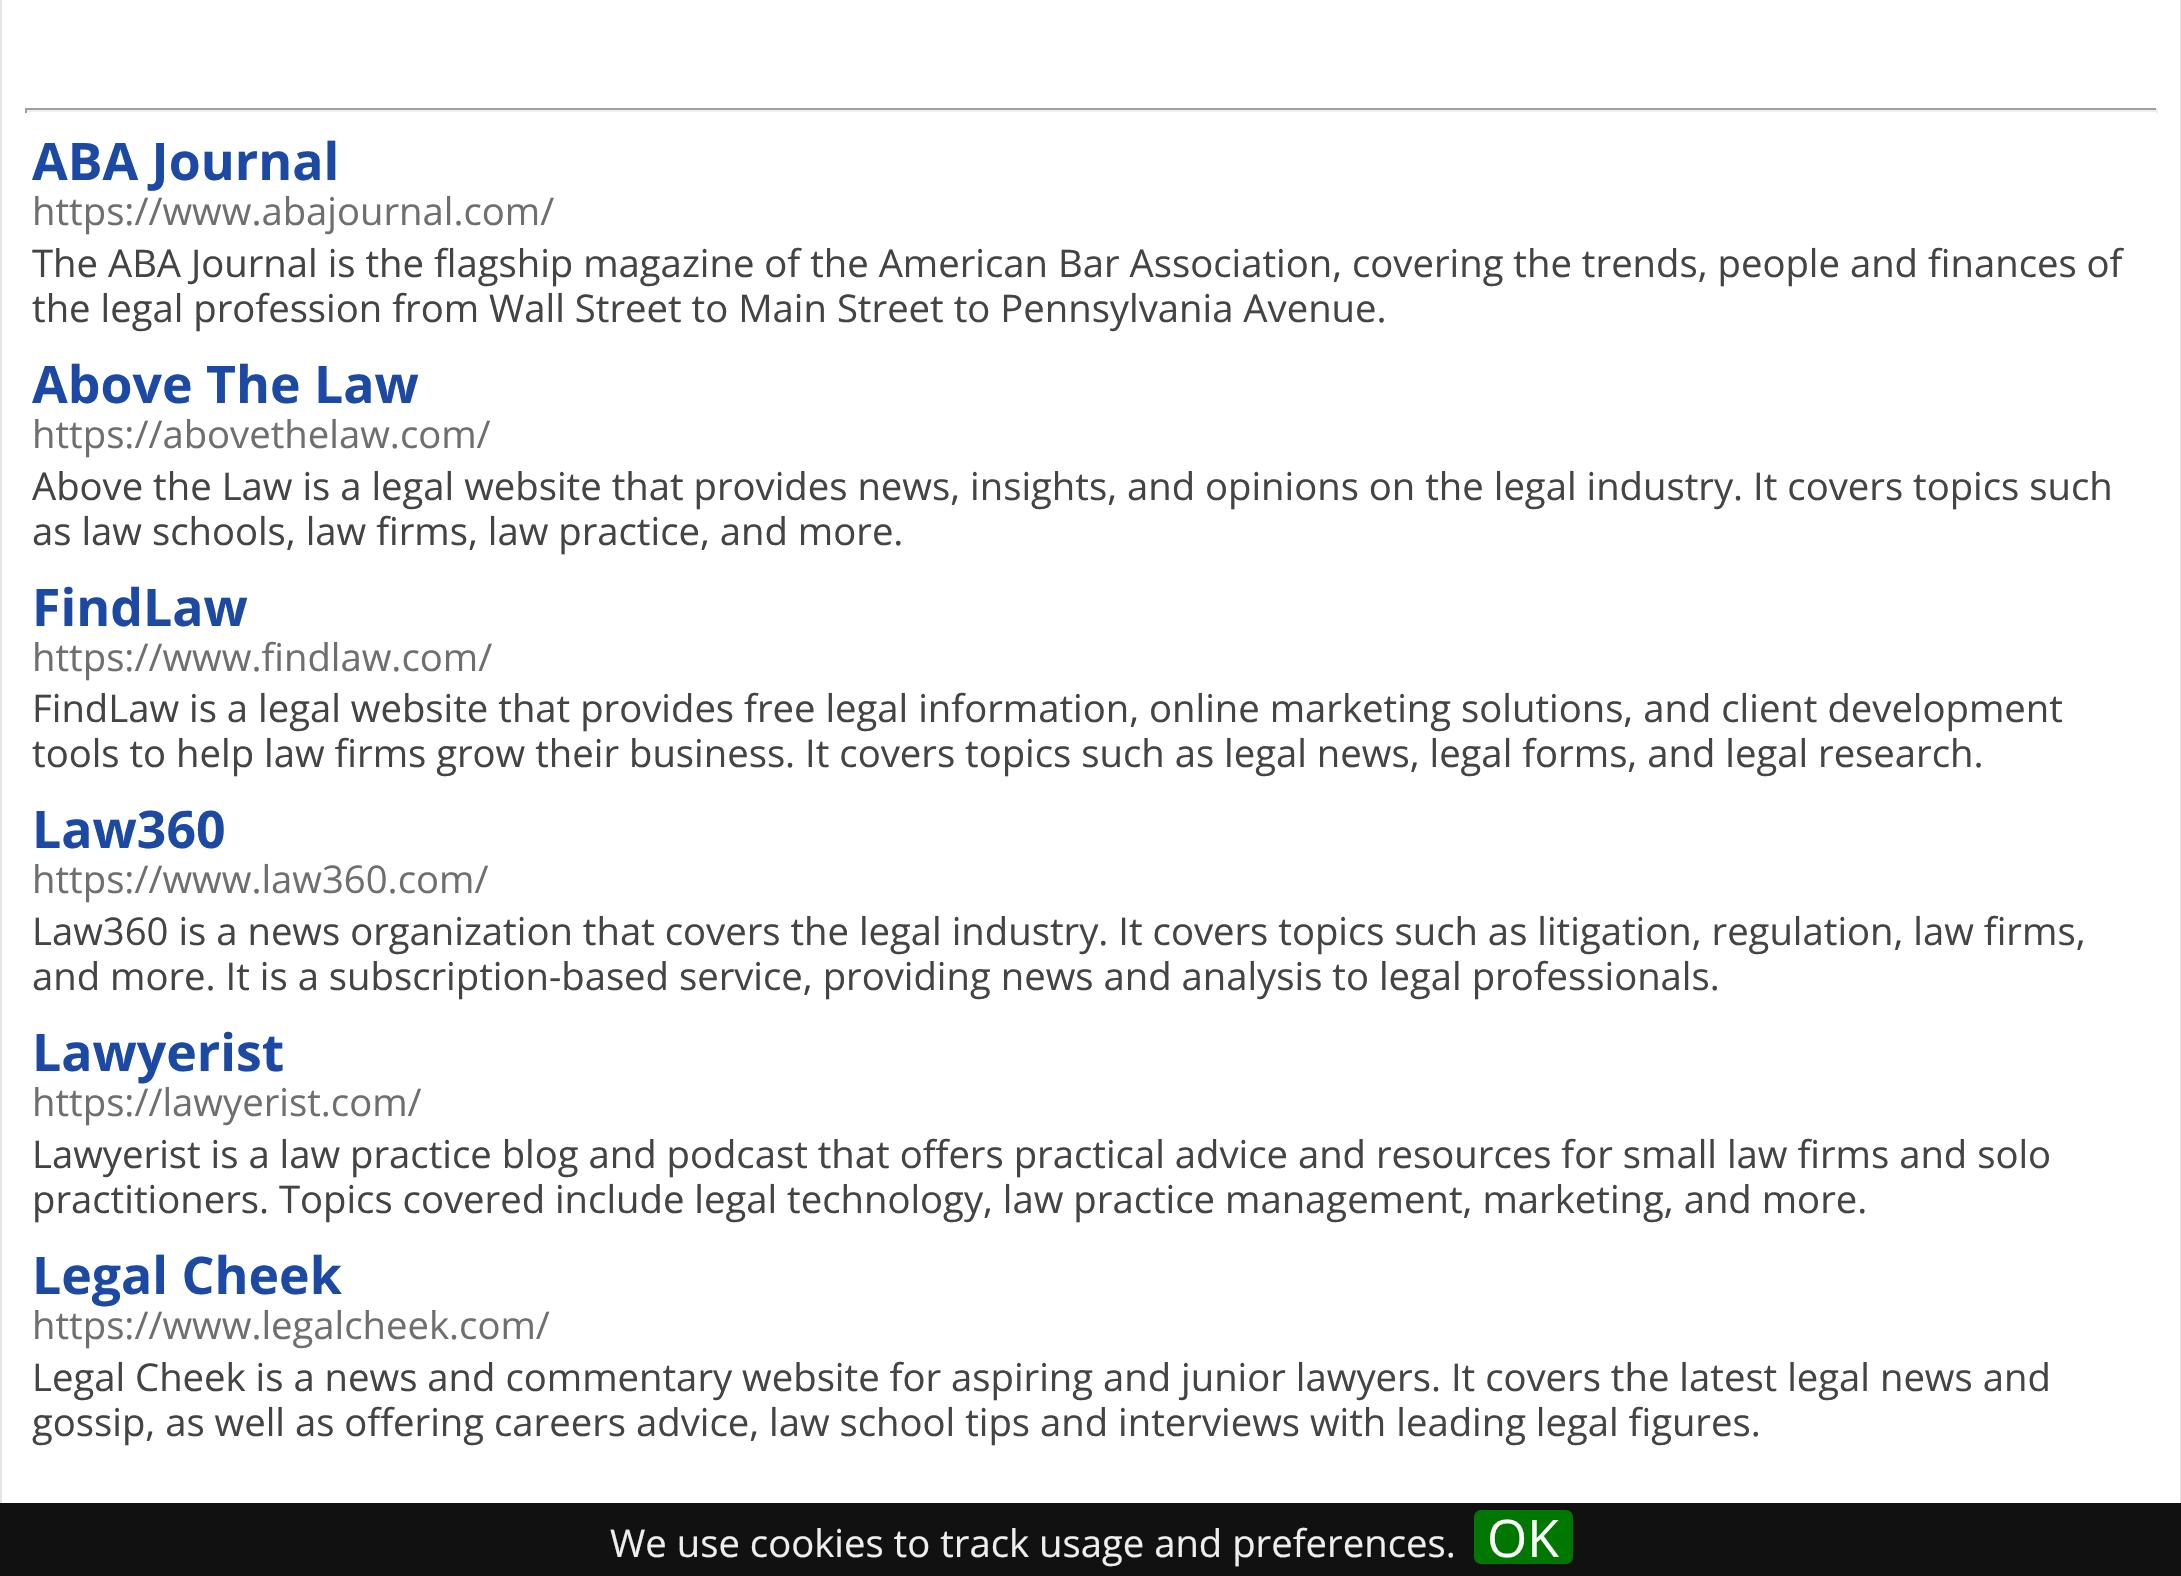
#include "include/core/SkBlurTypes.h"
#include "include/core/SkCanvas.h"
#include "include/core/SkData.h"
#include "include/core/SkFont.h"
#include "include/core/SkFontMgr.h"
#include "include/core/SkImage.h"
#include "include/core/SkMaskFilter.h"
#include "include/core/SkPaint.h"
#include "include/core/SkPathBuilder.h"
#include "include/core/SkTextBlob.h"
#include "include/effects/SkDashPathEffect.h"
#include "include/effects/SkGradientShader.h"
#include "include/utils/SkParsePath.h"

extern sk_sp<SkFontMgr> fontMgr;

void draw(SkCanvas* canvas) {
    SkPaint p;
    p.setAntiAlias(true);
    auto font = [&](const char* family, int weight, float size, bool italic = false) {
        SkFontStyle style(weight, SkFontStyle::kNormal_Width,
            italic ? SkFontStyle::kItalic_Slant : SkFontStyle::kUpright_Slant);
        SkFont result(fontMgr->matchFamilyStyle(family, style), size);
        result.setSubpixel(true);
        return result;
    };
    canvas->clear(0xFFFFFFFF);
    {
        const struct { float l, t, r, b; SkColor color; } items[] = {
            {2180, 0, 2181, 1503, 0xFFE5E5E5},
            {0, 0, 2, 1503, 0xFFE5E5E5},
            {25, 108, 2158, 110, 0xFF9F9F9F},
            {2156, 108, 2158, 113, 0xFFEEEEEE},
            {25, 110, 2158, 112, 0xFFEEEEEE},
            {25, 108, 27, 113, 0xFF9F9F9F},
        };
        for (auto [l, t, r, b, color] : items) {
            p.setColor(color);
            canvas->drawRect(SkRect::MakeLTRB(l, t, r, b), p);
        }
    }
    auto font1 = font("Open Sans", 700, 51.75f);
    p.setColor(0xFF1C49A3);
    canvas->drawString("ABA Journal", 32, 180, font1, p);
    auto font2 = font("Open Sans", 400, 38.25f);
    p.setColor(0xFF6F6F6F);
    canvas->drawString("https://www.abajournal.com/", 32, 225, font2, p);
    p.setColor(0xFF444444);
    canvas->drawString("The ABA Journal is the flagship magazine of the American Bar Association, covering the trends, people and finances of", 32, 277, font2, p);
    canvas->drawString("the legal profession from Wall Street to Main Street to Pennsylvania Avenue.", 32, 322, font2, p);
    p.setColor(0xFF1C49A3);
    canvas->drawString("Above The Law", 32, 403, font1, p);
    p.setColor(0xFF6F6F6F);
    canvas->drawString("https://abovethelaw.com/", 32, 448, font2, p);
    p.setColor(0xFF444444);
    canvas->drawString("Above the Law is a legal website that provides news, insights, and opinions on the legal industry. It covers topics such", 32, 500, font2, p);
    canvas->drawString("as law schools, law firms, law practice, and more.", 32, 545, font2, p);
    p.setColor(0xFF1C49A3);
    canvas->drawString("FindLaw", 32, 626, font1, p);
    p.setColor(0xFF6F6F6F);
    canvas->drawString("https://www.findlaw.com/", 32, 671, font2, p);
    p.setColor(0xFF444444);
    canvas->drawString("FindLaw is a legal website that provides free legal information, online marketing solutions, and client development", 32, 722, font2, p);
    canvas->drawString("tools to help law firms grow their business. It covers topics such as legal news, legal forms, and legal research.", 32, 767, font2, p);
    p.setColor(0xFF1C49A3);
    canvas->drawString("Law360", 32, 848, font1, p);
    p.setColor(0xFF6F6F6F);
    canvas->drawString("https://www.law360.com/", 32, 893, font2, p);
    p.setColor(0xFF444444);
    canvas->drawString("Law360 is a news organization that covers the legal industry. It covers topics such as litigation, regulation, law firms,", 32, 945, font2, p);
    canvas->drawString("and more. It is a subscription-based service, providing news and analysis to legal professionals.", 32, 990, font2, p);
    p.setColor(0xFF1C49A3);
    canvas->drawString("Lawyerist", 32, 1071, font1, p);
    p.setColor(0xFF6F6F6F);
    canvas->drawString("https://lawyerist.com/", 32, 1116, font2, p);
    p.setColor(0xFF444444);
    canvas->drawString("Lawyerist is a law practice blog and podcast that offers practical advice and resources for small law firms and solo", 32, 1168, font2, p);
    canvas->drawString("practitioners. Topics covered include legal technology, law practice management, marketing, and more.", 32, 1213, font2, p);
    p.setColor(0xFF1C49A3);
    canvas->drawString("Legal Cheek", 32, 1294, font1, p);
    p.setColor(0xFF6F6F6F);
    canvas->drawString("https://www.legalcheek.com/", 32, 1339, font2, p);
    p.setColor(0xFF444444);
    canvas->drawString("Legal Cheek is a news and commentary website for aspiring and junior lawyers. It covers the latest legal news and", 32, 1391, font2, p);
    canvas->drawString("gossip, as well as offering careers advice, law school tips and interviews with leading legal figures.", 32, 1436, font2, p);
    p.setColor(0xFF111111);
    canvas->drawRect(SkRect::MakeLTRB(0, 1503, 2181, 1576), p);
    p.setColor(0xFFEEEEEE);
    canvas->drawString("We use cookies to track usage and preferences.", 610, 1557, font2, p);
    p.setColor(0xFF007700);
    canvas->drawRoundRect(SkRect::MakeLTRB(1474, 1510, 1573, 1564), 7, 7, p);
    auto font3 = font("Open Sans", 400, 51.75f);
    p.setColor(0xFFFFFFFF);
    canvas->drawString("OK", 1487, 1557, font3, p);
}
